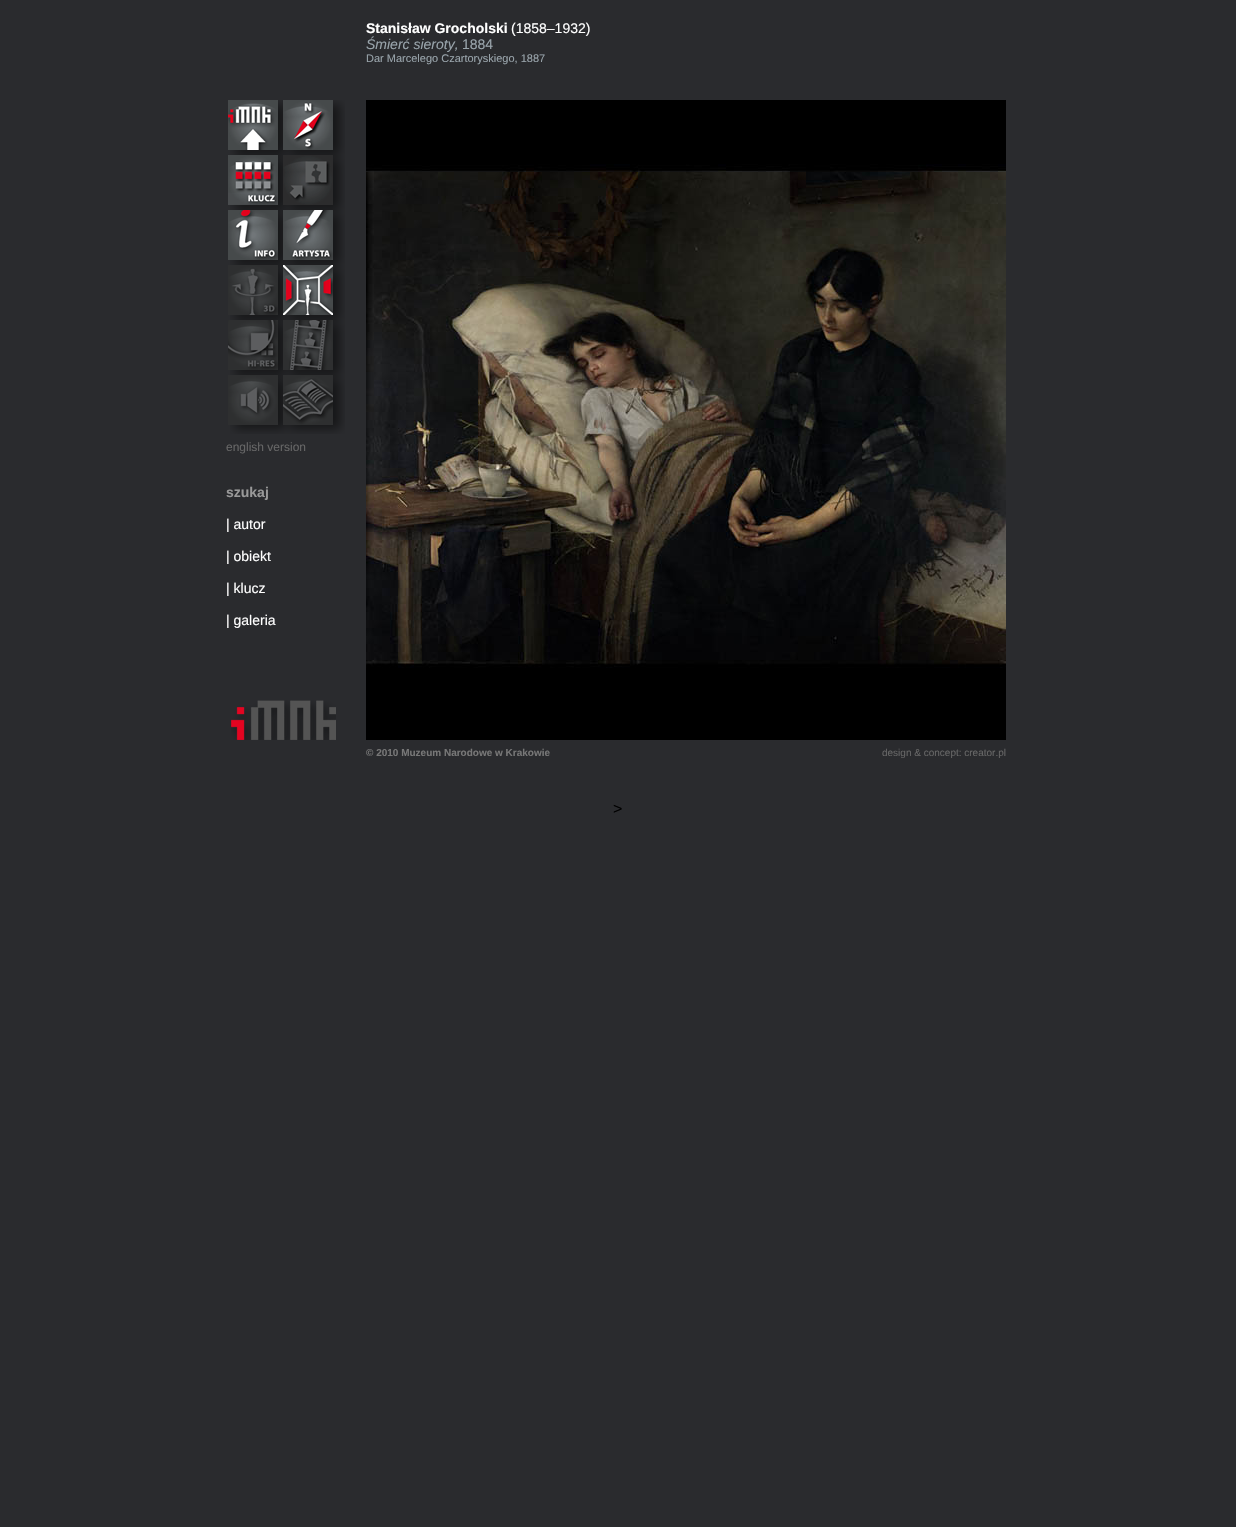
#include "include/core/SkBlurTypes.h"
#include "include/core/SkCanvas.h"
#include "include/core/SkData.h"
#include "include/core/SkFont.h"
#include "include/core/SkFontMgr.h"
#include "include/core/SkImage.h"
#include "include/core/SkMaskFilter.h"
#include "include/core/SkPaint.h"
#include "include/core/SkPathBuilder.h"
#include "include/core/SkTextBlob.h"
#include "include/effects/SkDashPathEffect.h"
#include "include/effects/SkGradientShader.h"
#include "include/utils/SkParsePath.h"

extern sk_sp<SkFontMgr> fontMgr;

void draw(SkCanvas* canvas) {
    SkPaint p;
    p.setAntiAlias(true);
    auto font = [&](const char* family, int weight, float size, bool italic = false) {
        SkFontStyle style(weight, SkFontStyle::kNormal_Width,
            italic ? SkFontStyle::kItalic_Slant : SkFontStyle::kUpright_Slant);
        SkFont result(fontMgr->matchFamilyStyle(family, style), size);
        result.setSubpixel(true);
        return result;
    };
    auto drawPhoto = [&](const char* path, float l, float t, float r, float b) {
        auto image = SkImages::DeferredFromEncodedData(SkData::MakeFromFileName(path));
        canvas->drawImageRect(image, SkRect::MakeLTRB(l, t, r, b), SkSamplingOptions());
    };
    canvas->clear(0xFF2A2B2E);
    p.setColor(0xFF000000);
    canvas->drawRect(SkRect::MakeLTRB(366, 100, 1006, 740), p);
    auto font1 = font("Liberation Sans", 700, 14);
    p.setColor(0xFFFFFFFF);
    canvas->drawString("Stanisław Grocholski", 366, 33, font1, p);
    auto font2 = font("Liberation Sans", 400, 14);
    canvas->drawString("(1858–1932)", 511, 33, font2, p);
    auto font3 = font("Liberation Sans", 400, 14, true);
    p.setColor(0xFF99A4AB);
    canvas->drawString("Śmierć sieroty,", 366, 49, font3, p);
    canvas->drawString("1884", 462, 49, font2, p);
    auto font4 = font("Liberation Sans", 400, 11);
    canvas->drawString("Dar Marcelego Czartoryskiego, 1887", 366, 62, font4, p);
    drawPhoto("media/1.png", 230, 100, 345, 434);
    drawPhoto("media/2.png", 228, 100, 278, 150);
    drawPhoto("media/3.png", 283, 100, 333, 150);
    drawPhoto("media/4.png", 228, 155, 278, 205);
    drawPhoto("media/5.png", 283, 155, 333, 205);
    drawPhoto("media/6.png", 228, 210, 278, 260);
    drawPhoto("media/7.png", 283, 210, 333, 260);
    drawPhoto("media/8.png", 228, 265, 278, 315);
    drawPhoto("media/9.png", 283, 265, 333, 315);
    drawPhoto("media/10.png", 228, 320, 278, 370);
    drawPhoto("media/11.png", 283, 320, 333, 370);
    drawPhoto("media/12.png", 228, 375, 278, 425);
    drawPhoto("media/13.png", 283, 375, 333, 425);
    auto font5 = font("Liberation Sans", 400, 12);
    p.setColor(0xFF666666);
    canvas->drawString("english version", 226, 451, font5, p);
    p.setColor(0xFF999999);
    canvas->drawString("szukaj", 226, 497, font1, p);
    p.setColor(0xFFFFFFFF);
    {
        const struct { const char* s; float x, y; } items[] = {
            {"| autor", 226, 529},
            {"| obiekt", 226, 561},
            {"| klucz", 226, 593},
            {"| galeria", 226, 625},
        };
        for (auto [s, x, y] : items) {
            canvas->drawString(s, x, y, font2, p);
        }
    }
    drawPhoto("media/14.png", 231, 700, 336, 740);
    drawPhoto("media/15.png", 366, 164, 1006, 668);
    auto font6 = font("Liberation Sans", 700, 10);
    p.setColor(0xFF777777);
    canvas->drawString("© 2010 Muzeum Narodowe w Krakowie", 366, 756, font6, p);
    auto font7 = font("Liberation Sans", 400, 10);
    p.setColor(0xFF666666);
    canvas->drawString("design & concept: creator.pl", 882, 756, font7, p);
    auto font8 = font("Liberation Sans", 400, 16);
    p.setColor(0xFF000000);
    canvas->drawString(">", 613, 814, font8, p);
}
